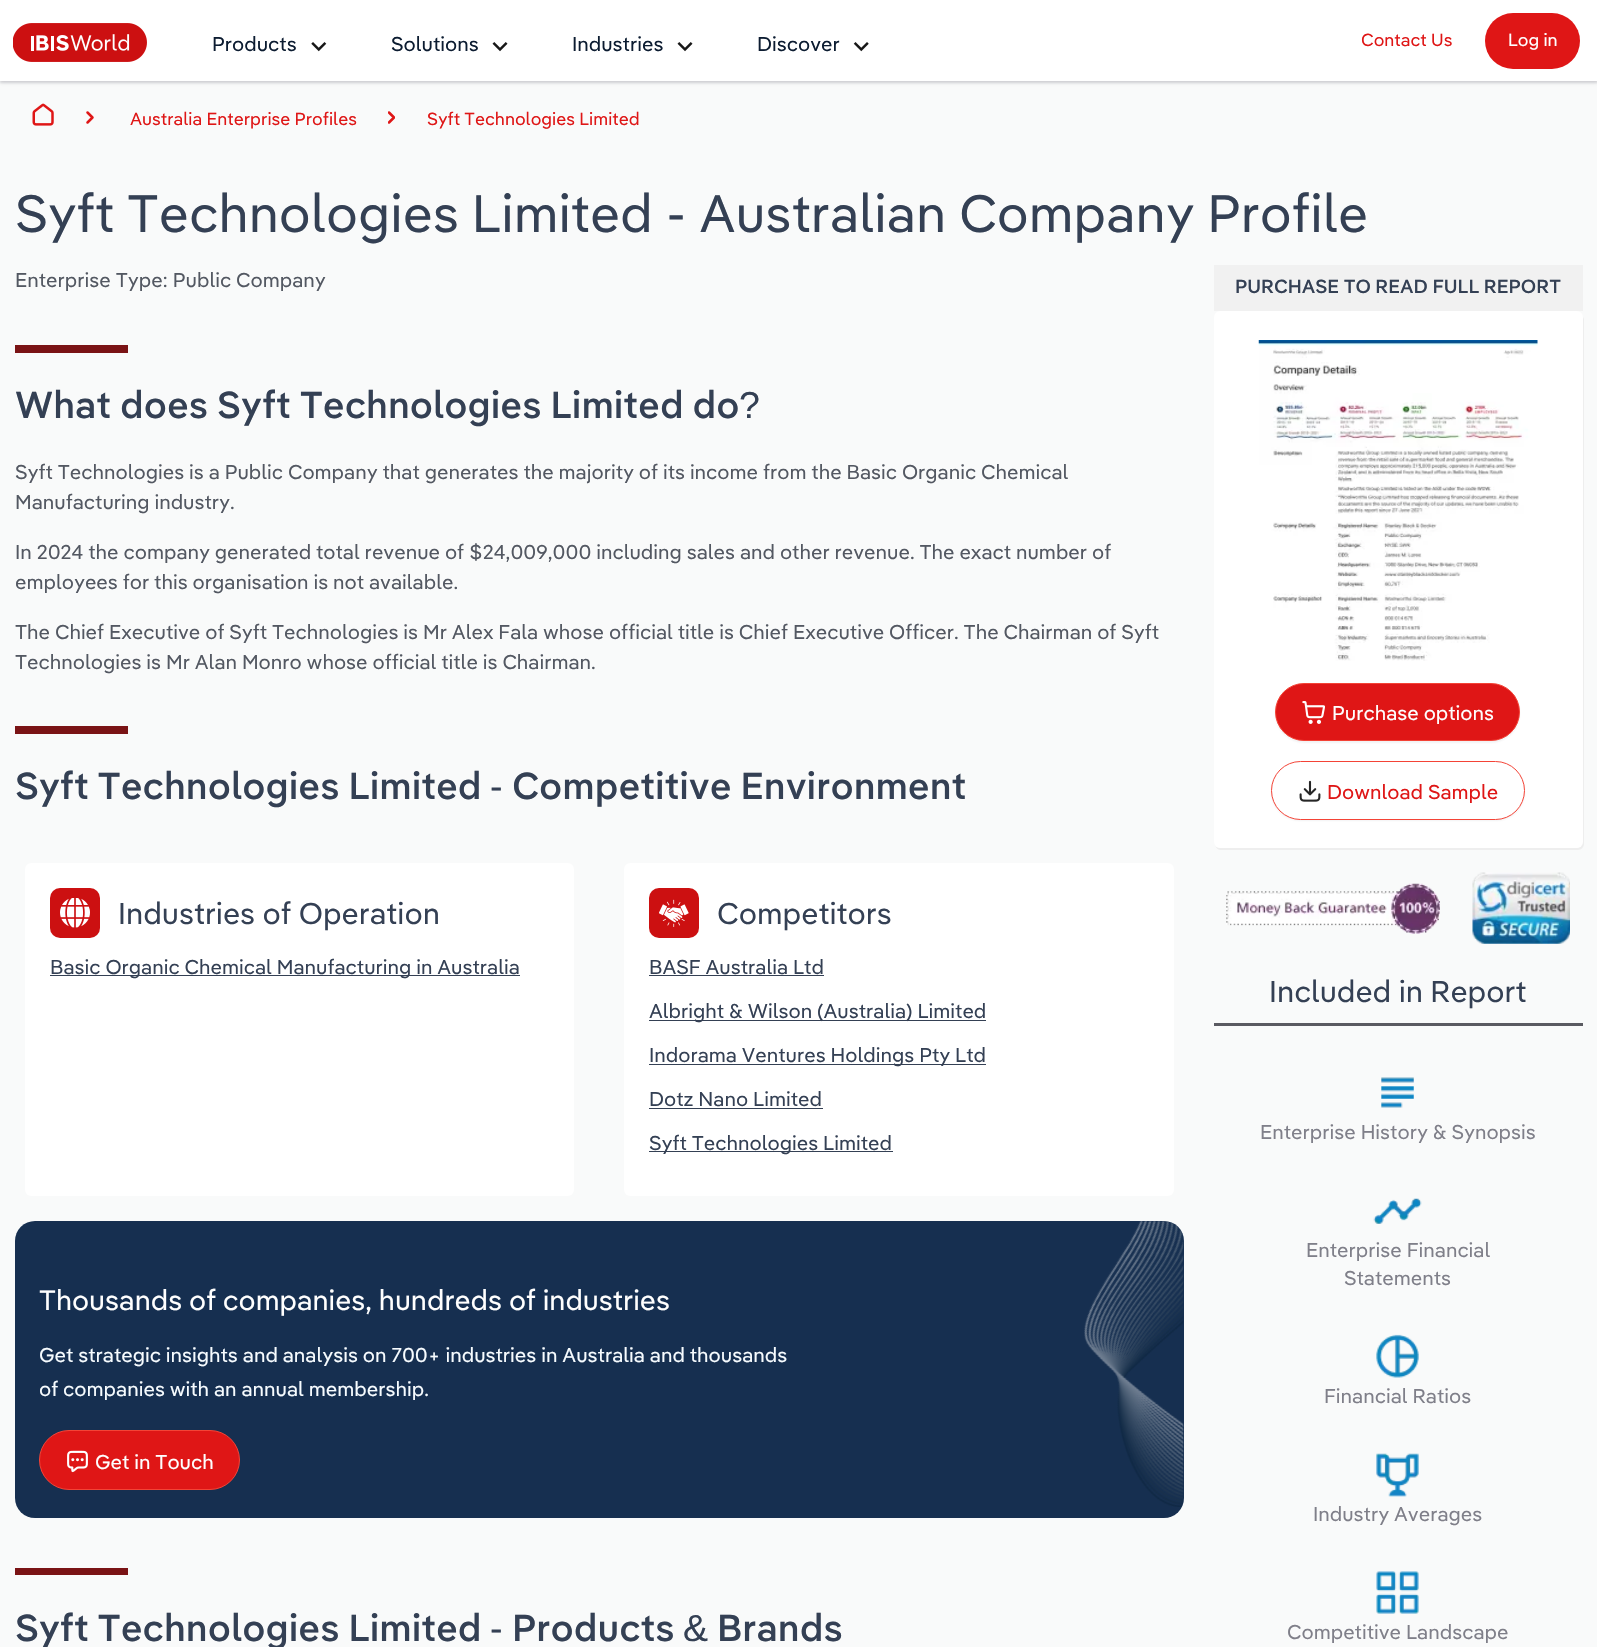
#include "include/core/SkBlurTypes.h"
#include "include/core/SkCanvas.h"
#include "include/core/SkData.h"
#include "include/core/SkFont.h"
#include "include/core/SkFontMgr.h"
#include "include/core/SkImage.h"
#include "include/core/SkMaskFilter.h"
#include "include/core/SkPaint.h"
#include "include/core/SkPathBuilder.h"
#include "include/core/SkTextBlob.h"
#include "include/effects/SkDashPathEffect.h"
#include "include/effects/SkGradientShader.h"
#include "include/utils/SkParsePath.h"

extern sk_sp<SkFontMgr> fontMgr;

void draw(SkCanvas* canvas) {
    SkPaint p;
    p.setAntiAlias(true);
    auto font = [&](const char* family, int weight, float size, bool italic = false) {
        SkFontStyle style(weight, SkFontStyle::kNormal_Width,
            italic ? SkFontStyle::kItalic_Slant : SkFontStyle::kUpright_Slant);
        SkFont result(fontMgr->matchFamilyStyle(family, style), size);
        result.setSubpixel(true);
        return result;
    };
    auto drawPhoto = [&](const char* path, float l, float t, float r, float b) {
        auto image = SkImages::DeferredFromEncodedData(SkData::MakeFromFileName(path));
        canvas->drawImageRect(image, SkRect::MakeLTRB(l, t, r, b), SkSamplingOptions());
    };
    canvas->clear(0xFFF9FAFA);
    p.setColor(0x1A101828);
    p.setMaskFilter(SkMaskFilter::MakeBlur(kNormal_SkBlurStyle, 1));
    canvas->drawRect(SkRect::MakeLTRB(0, 1, 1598, 83), p);
    p.setMaskFilter(nullptr);
    p.setMaskFilter(SkMaskFilter::MakeBlur(kNormal_SkBlurStyle, 2));
    canvas->drawRect(SkRect::MakeLTRB(0, 1, 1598, 83), p);
    p.setMaskFilter(nullptr);
    p.setColor(0xFFFFFFFF);
    canvas->drawRect(SkRect::MakeLTRB(0, 0, 1597, 81), p);
    drawPhoto("media/1.png", 13, 23, 147, 62);
    auto font1 = font("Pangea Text", 400, 20);
    p.setColor(0xFF0C1C31);
    canvas->drawString("Products", 212, 51, font1, p);
    drawPhoto("media/2.png", 311, 42, 327, 52);
    canvas->drawString("Solutions", 391, 51, font1, p);
    drawPhoto("media/3.png", 492, 42, 508, 52);
    canvas->drawString("Industries", 572, 51, font1, p);
    drawPhoto("media/3.png", 677, 42, 693, 52);
    canvas->drawString("Discover", 757, 51, font1, p);
    drawPhoto("media/4.png", 853, 42, 869, 52);
    auto font2 = font("Pangea Text", 400, 17.5f);
    p.setColor(0xFFDF1616);
    canvas->drawString("Contact Us", 1361, 46, font2, p);
    canvas->drawRoundRect(SkRect::MakeLTRB(1485, 13, 1580, 69), 28, 28, p);
    p.setColor(0xFFFFFFFF);
    canvas->drawString("Log in", 1508, 46, font2, p);
    drawPhoto("media/5.png", 32, 103, 54, 126);
    p.setStyle(SkPaint::kStroke_Style);
    p.setStrokeWidth(2.5f);
    p.setStrokeCap(SkPaint::kRound_Cap);
    p.setStrokeJoin(SkPaint::kRound_Join);
    p.setColor(0xFFDF1616);
    canvas->drawPath(SkPathBuilder().moveTo(87.5f, 122.5f).lineTo(92.5f, 117.5f).lineTo(87.5f, 112.5f).detach(), p);
    p.setStyle(SkPaint::kFill_Style);
    canvas->drawString("Australia Enterprise Profiles", 130, 125, font2, p);
    canvas->save();
    canvas->clipRect(SkRect::MakeLTRB(388, 111, 395, 124));
    p.setStyle(SkPaint::kStroke_Style);
    canvas->drawPath(SkPathBuilder().moveTo(389, 122.5f).lineTo(394, 117.5f).lineTo(389, 112.5f).detach(), p);
    canvas->restore();
    p.setStyle(SkPaint::kFill_Style);
    canvas->drawString("Syft Technologies Limited", 427, 125, font2, p);
    auto font3 = font("Pangea Text", 400, 52.5f);
    p.setColor(0xFF344054);
    canvas->drawString("Syft Technologies Limited - Australian Company Profile", 15, 232, font3, p);
    p.setColor(0xFF535862);
    canvas->drawString("Enterprise Type: Public Company", 15, 287, font1, p);
    p.setColor(0xFF7A1315);
    canvas->drawRect(SkRect::MakeLTRB(15, 345, 128, 353), p);
    auto font4 = font("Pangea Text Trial", 500, 37.5f);
    p.setColor(0xFF344054);
    canvas->drawString("What does Syft Technologies Limited do", 15, 418, font4, p);
    auto font5 = font("Liberation Sans", 400, 37.5f);
    canvas->drawString("?", 739, 418, font5, p);
    p.setColor(0xFF535862);
    {
        const struct { const char* s; float x, y; } items[] = {
            {"Syft Technologies is a Public Company that generates the majority of its income from the Basic Organic Chemical", 15, 479},
            {"Manufacturing industry.", 15, 509},
            {"In 2024 the company generated total revenue of $24,009,000 including sales and other revenue. The exact number of", 15, 559},
            {"employees for this organisation is not available.", 15, 589},
            {"The Chief Executive of Syft Technologies is Mr Alex Fala whose official title is Chief Executive Officer. The Chairman of Syft", 15, 639},
            {"Technologies is Mr Alan Monro whose official title is Chairman.", 15, 669},
        };
        for (auto [s, x, y] : items) {
            canvas->drawString(s, x, y, font1, p);
        }
    }
    p.setColor(0xFF7A1315);
    canvas->drawRect(SkRect::MakeLTRB(15, 726, 128, 734), p);
    p.setColor(0xFF344054);
    canvas->drawString("Syft Technologies Limited", 15, 799, font4, p);
    canvas->drawString("-", 490, 799, font5, p);
    canvas->drawString("Competitive Environment", 512, 799, font4, p);
    p.setColor(0xFFFFFFFF);
    canvas->drawRoundRect(SkRect::MakeLTRB(25, 863, 574, 1196), 6, 6, p);
    p.setColor(0xFFCC1011);
    canvas->drawRoundRect(SkRect::MakeLTRB(50, 888, 100, 938), 10, 10, p);
    drawPhoto("media/6.png", 60, 898, 90, 928);
    auto font6 = font("Pangea Text", 400, 30);
    p.setColor(0xFF344054);
    canvas->drawString("Industries of Operation", 118, 924, font6, p);
    canvas->drawRect(SkRect::MakeLTRB(50, 975, 520, 976), p);
    canvas->drawString("Basic Organic Chemical Manufacturing in Australia", 50, 974, font1, p);
    p.setColor(0xFFFFFFFF);
    canvas->drawRoundRect(SkRect::MakeLTRB(624, 863, 1174, 1196), 6, 6, p);
    p.setColor(0xFFCC1011);
    canvas->drawRoundRect(SkRect::MakeLTRB(649, 888, 699, 938), 10, 10, p);
    drawPhoto("media/7.png", 659, 899, 689, 927);
    p.setColor(0xFF344054);
    canvas->drawString("Competitors", 717, 924, font6, p);
    canvas->drawString("BASF Australia Ltd", 649, 974, font1, p);
    canvas->drawRect(SkRect::MakeLTRB(649, 975, 824, 976), p);
    canvas->drawRect(SkRect::MakeLTRB(649, 1020, 986, 1021), p);
    canvas->drawString("Albright & Wilson (Australia) Limited", 649, 1018, font1, p);
    canvas->drawRect(SkRect::MakeLTRB(649, 1064, 986, 1065), p);
    canvas->drawString("Indorama Ventures Holdings Pty Ltd", 649, 1062, font1, p);
    canvas->drawString("Dotz Nano Limited", 649, 1106, font1, p);
    canvas->drawRect(SkRect::MakeLTRB(649, 1108, 823, 1109), p);
    canvas->drawRect(SkRect::MakeLTRB(649, 1151, 893, 1152), p);
    canvas->drawString("Syft Technologies Limited", 649, 1150, font1, p);
    p.setColor(0xFF162F50);
    canvas->drawRoundRect(SkRect::MakeLTRB(15, 1221, 1184, 1518), 20, 20, p);
    drawPhoto("media/8.png", 1084, 1221, 1184, 1507);
    auto font7 = font("Pangea Text", 400, 28);
    p.setColor(0xFFFFFFFF);
    canvas->drawString("Thousands of companies, hundreds of industries", 39, 1310, font7, p);
    p.setColor(0xFFF7FCFF);
    canvas->drawString("Get strategic insights and analysis on 700+ industries in Australia and thousands", 39, 1362, font1, p);
    canvas->drawString("of companies with an annual membership.", 39, 1396, font1, p);
    p.setColor(0xFFDF1616);
    canvas->drawRoundRect(SkRect::MakeLTRB(39.5f, 1430.5f, 239.5f, 1489.5f), 29.5f, 29.5f, p);
    p.setStyle(SkPaint::kStroke_Style);
    p.setStrokeWidth(1);
    p.setStrokeCap(SkPaint::kButt_Cap);
    p.setStrokeJoin(SkPaint::kMiter_Join);
    p.setColor(0xFFF44336);
    canvas->drawRoundRect(SkRect::MakeLTRB(39.5f, 1430.5f, 239.5f, 1489.5f), 29.5f, 29.5f, p);
    drawPhoto("media/9.png", 67, 1450, 88, 1473);
    p.setStyle(SkPaint::kFill_Style);
    p.setColor(0xFFFFFFFF);
    canvas->drawString("Get in Touch", 95, 1469, font1, p);
    p.setColor(0xFF7A1315);
    canvas->drawRect(SkRect::MakeLTRB(15, 1568, 128, 1575), p);
    p.setColor(0xFF344054);
    canvas->drawString("Syft Technologies Limited", 15, 1641, font4, p);
    canvas->drawString("-", 490, 1641, font5, p);
    canvas->drawString("Products", 512, 1641, font4, p);
    canvas->drawString("&", 683, 1641, font5, p);
    canvas->drawString("Brands", 717, 1641, font4, p);
    p.setColor(0xFFF1F1F1);
    canvas->drawRect(SkRect::MakeLTRB(1214, 265, 1583, 311), p);
    auto font8 = font("Pangea Text Trial", 500, 19);
    p.setColor(0xFF344054);
    canvas->drawString("PURCHASE TO READ FULL REPORT", 1235, 293, font8, p);
    p.setColor(0xFFEEEEEE);
    canvas->drawPath(SkPathBuilder().moveTo(1215, 845).cubicTo(1216, 848, 1218, 850, 1221, 850).lineTo(1578, 850).cubicTo(1581, 850, 1584, 847, 1584, 844).lineTo(1584, 320).cubicTo(1584, 318, 1583, 317, 1582, 316).lineTo(1582, 841).cubicTo(1582, 845, 1580, 848, 1576, 848).lineTo(1220, 848).cubicTo(1218, 848, 1216, 847, 1215, 845).close().detach(), p);
    p.setColor(0xFFFFFFFF);
    canvas->drawRoundRect(SkRect::MakeLTRB(1214, 311, 1583, 848), 6, 6, p);
    drawPhoto("media/10.png", 1258, 340, 1538, 661);
    p.setColor(0x0D101828);
    p.setMaskFilter(SkMaskFilter::MakeBlur(kNormal_SkBlurStyle, 1));
    canvas->drawRoundRect(SkRect::MakeLTRB(1275, 684, 1520, 743), 29.5f, 29.5f, p);
    p.setMaskFilter(nullptr);
    p.setColor(0xFFDF1616);
    canvas->drawRoundRect(SkRect::MakeLTRB(1275.5f, 683.5f, 1519.5f, 740.5f), 28.5f, 28.5f, p);
    p.setStyle(SkPaint::kStroke_Style);
    p.setColor(0xFFF44336);
    canvas->drawRoundRect(SkRect::MakeLTRB(1275.5f, 683.5f, 1519.5f, 740.5f), 28.5f, 28.5f, p);
    drawPhoto("media/11.png", 1302, 701, 1325, 724);
    p.setStyle(SkPaint::kFill_Style);
    p.setColor(0xFFFFFFFF);
    canvas->drawString("Purchase options", 1332, 720, font1, p);
    p.setColor(0x0D101828);
    p.setMaskFilter(SkMaskFilter::MakeBlur(kNormal_SkBlurStyle, 1));
    canvas->drawRoundRect(SkRect::MakeLTRB(1271, 763, 1525, 821), 29, 29, p);
    p.setMaskFilter(nullptr);
    p.setColor(0xFFFFFFFF);
    canvas->drawRoundRect(SkRect::MakeLTRB(1271.5f, 761.5f, 1524.5f, 819.5f), 29, 29, p);
    p.setStyle(SkPaint::kStroke_Style);
    p.setColor(0xFFF44336);
    canvas->drawRoundRect(SkRect::MakeLTRB(1271.5f, 761.5f, 1524.5f, 819.5f), 29, 29, p);
    drawPhoto("media/12.png", 1299, 780, 1321, 802);
    p.setStyle(SkPaint::kFill_Style);
    p.setColor(0xFFDF1616);
    canvas->drawString("Download Sample", 1327, 799, font1, p);
    drawPhoto("media/13.png", 1226, 883, 1440, 934);
    drawPhoto("media/14.png", 1472, 872, 1570, 944);
    p.setColor(0xFF5A5A61);
    canvas->drawRect(SkRect::MakeLTRB(1214, 1023, 1583, 1026), p);
    p.setColor(0xFF344054);
    canvas->drawString("Included in Report", 1269, 1002, font6, p);
    drawPhoto("media/15.png", 1381, 1077, 1414, 1108);
    p.setColor(0xFF7F7F89);
    canvas->drawString("Enterprise History & Synopsis", 1260, 1139, font1, p);
    drawPhoto("media/16.png", 1373, 1198, 1422, 1224);
    canvas->drawString("Enterprise Financial", 1306, 1257, font1, p);
    canvas->drawString("Statements", 1344, 1285, font1, p);
    drawPhoto("media/17.png", 1376, 1334, 1419, 1378);
    canvas->drawString("Financial Ratios", 1324, 1403, font1, p);
    drawPhoto("media/18.png", 1376, 1453, 1419, 1497);
    canvas->drawString("Industry Averages", 1313, 1521, font1, p);
    drawPhoto("media/19.png", 1376, 1571, 1419, 1614);
    canvas->drawString("Competitive Landscape", 1287, 1639, font1, p);
}
